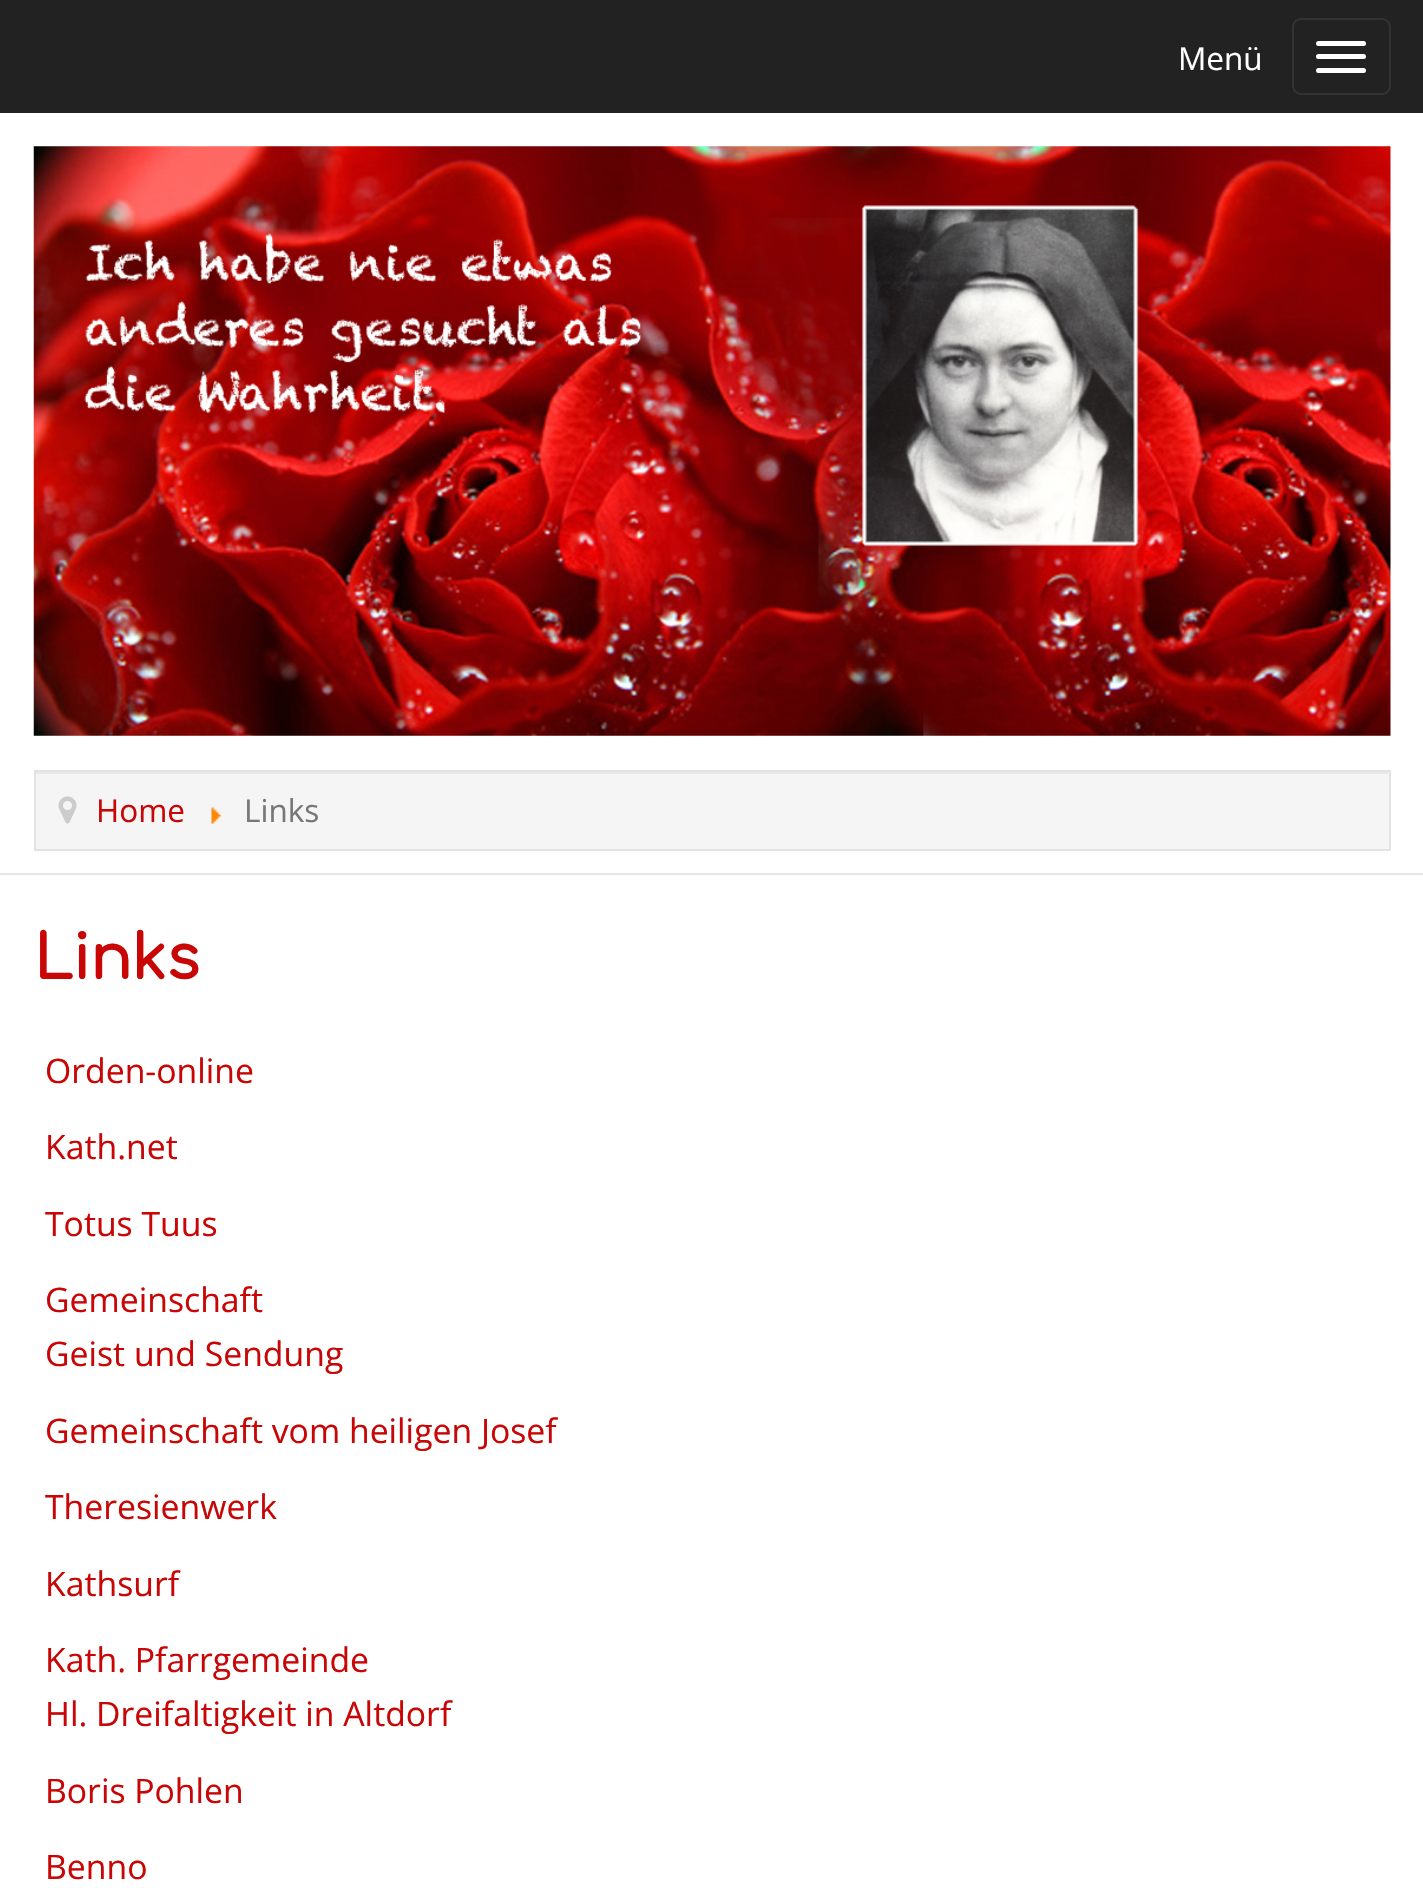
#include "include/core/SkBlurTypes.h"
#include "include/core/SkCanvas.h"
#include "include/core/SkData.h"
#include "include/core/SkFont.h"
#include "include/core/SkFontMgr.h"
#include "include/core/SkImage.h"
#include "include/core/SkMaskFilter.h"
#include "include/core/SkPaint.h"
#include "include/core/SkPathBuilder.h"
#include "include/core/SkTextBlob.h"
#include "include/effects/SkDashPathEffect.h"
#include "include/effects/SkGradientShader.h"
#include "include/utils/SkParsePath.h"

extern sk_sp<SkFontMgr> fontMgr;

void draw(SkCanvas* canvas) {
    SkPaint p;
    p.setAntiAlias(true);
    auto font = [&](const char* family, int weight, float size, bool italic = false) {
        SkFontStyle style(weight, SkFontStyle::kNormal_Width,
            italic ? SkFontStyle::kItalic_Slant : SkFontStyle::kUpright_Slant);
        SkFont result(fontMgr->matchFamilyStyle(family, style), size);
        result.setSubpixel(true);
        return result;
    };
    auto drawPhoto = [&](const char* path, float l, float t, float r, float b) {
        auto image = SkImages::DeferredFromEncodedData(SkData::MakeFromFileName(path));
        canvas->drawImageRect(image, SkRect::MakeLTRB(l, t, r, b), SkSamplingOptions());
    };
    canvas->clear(0xFFFFFFFF);
    p.setColor(0xFF222222);
    canvas->drawRect(SkRect::MakeLTRB(0, 0, 1423, 113), p);
    auto font1 = font("Open Sans", 400, 31.5f);
    p.setColor(0xFFFFFFFF);
    canvas->drawString("Menü", 1178, 70, font1, p);
    p.setStyle(SkPaint::kStroke_Style);
    p.setStrokeWidth(2);
    p.setColor(0xFF333333);
    canvas->drawRoundRect(SkRect::MakeLTRB(1293, 19, 1390, 94), 8, 8, p);
    p.setStyle(SkPaint::kFill_Style);
    p.setColor(0xFFFFFFFF);
    canvas->drawRoundRect(SkRect::MakeLTRB(1316, 41, 1366, 46), 2.5f, 2.5f, p);
    canvas->drawRoundRect(SkRect::MakeLTRB(1316, 54, 1366, 59), 2.5f, 2.5f, p);
    canvas->drawRoundRect(SkRect::MakeLTRB(1316, 68, 1366, 73), 2.5f, 2.5f, p);
    drawPhoto("media/1.png", 33, 146, 1391, 736);
    {
        const struct { float l, t, r, b; SkColor color; } items[] = {
            {0, 873, 1423, 875, 0xFFE7E7E7},
            {36, 772, 1389, 849, 0xFFF5F5F5},
            {36, 772, 1388, 774, 0xFFE9E9E9},
        };
        for (auto [l, t, r, b, color] : items) {
            p.setColor(color);
            canvas->drawRect(SkRect::MakeLTRB(l, t, r, b), p);
        }
    }
    p.setStyle(SkPaint::kStroke_Style);
    p.setColor(0xFFE3E3E3);
    canvas->drawRect(SkRect::MakeLTRB(35, 771, 1390, 850), p);
    drawPhoto("media/2.png", 58, 796, 77, 824);
    p.setStyle(SkPaint::kFill_Style);
    p.setColor(0xFFC90606);
    canvas->drawString("Home", 96, 822, font1, p);
    drawPhoto("media/3.png", 211, 807, 222, 824);
    p.setColor(0xFF777777);
    canvas->drawString("Links", 244, 822, font1, p);
    auto font2 = font("Comfortaa", 700, 61);
    p.setColor(0xFFC90606);
    canvas->drawString("Links", 34, 979, font2, p);
    auto font3 = font("Open Sans", 400, 33.75f);
    {
        const struct { const char* s; float x, y; } items[] = {
            {"Orden-online", 45, 1083},
            {"Kath.net", 45, 1159},
            {"Totus Tuus", 45, 1236},
            {"Gemeinschaft", 45, 1312},
            {"Geist und Sendung", 45, 1366},
            {"Gemeinschaft vom heiligen Josef", 45, 1443},
            {"Theresienwerk", 45, 1519},
            {"Kathsurf", 45, 1596},
            {"Kath. Pfarrgemeinde", 45, 1672},
            {"Hl. Dreifaltigkeit in Altdorf", 45, 1726},
            {"Boris Pohlen", 45, 1803},
            {"Benno", 45, 1879},
        };
        for (auto [s, x, y] : items) {
            canvas->drawString(s, x, y, font3, p);
        }
    }
}
